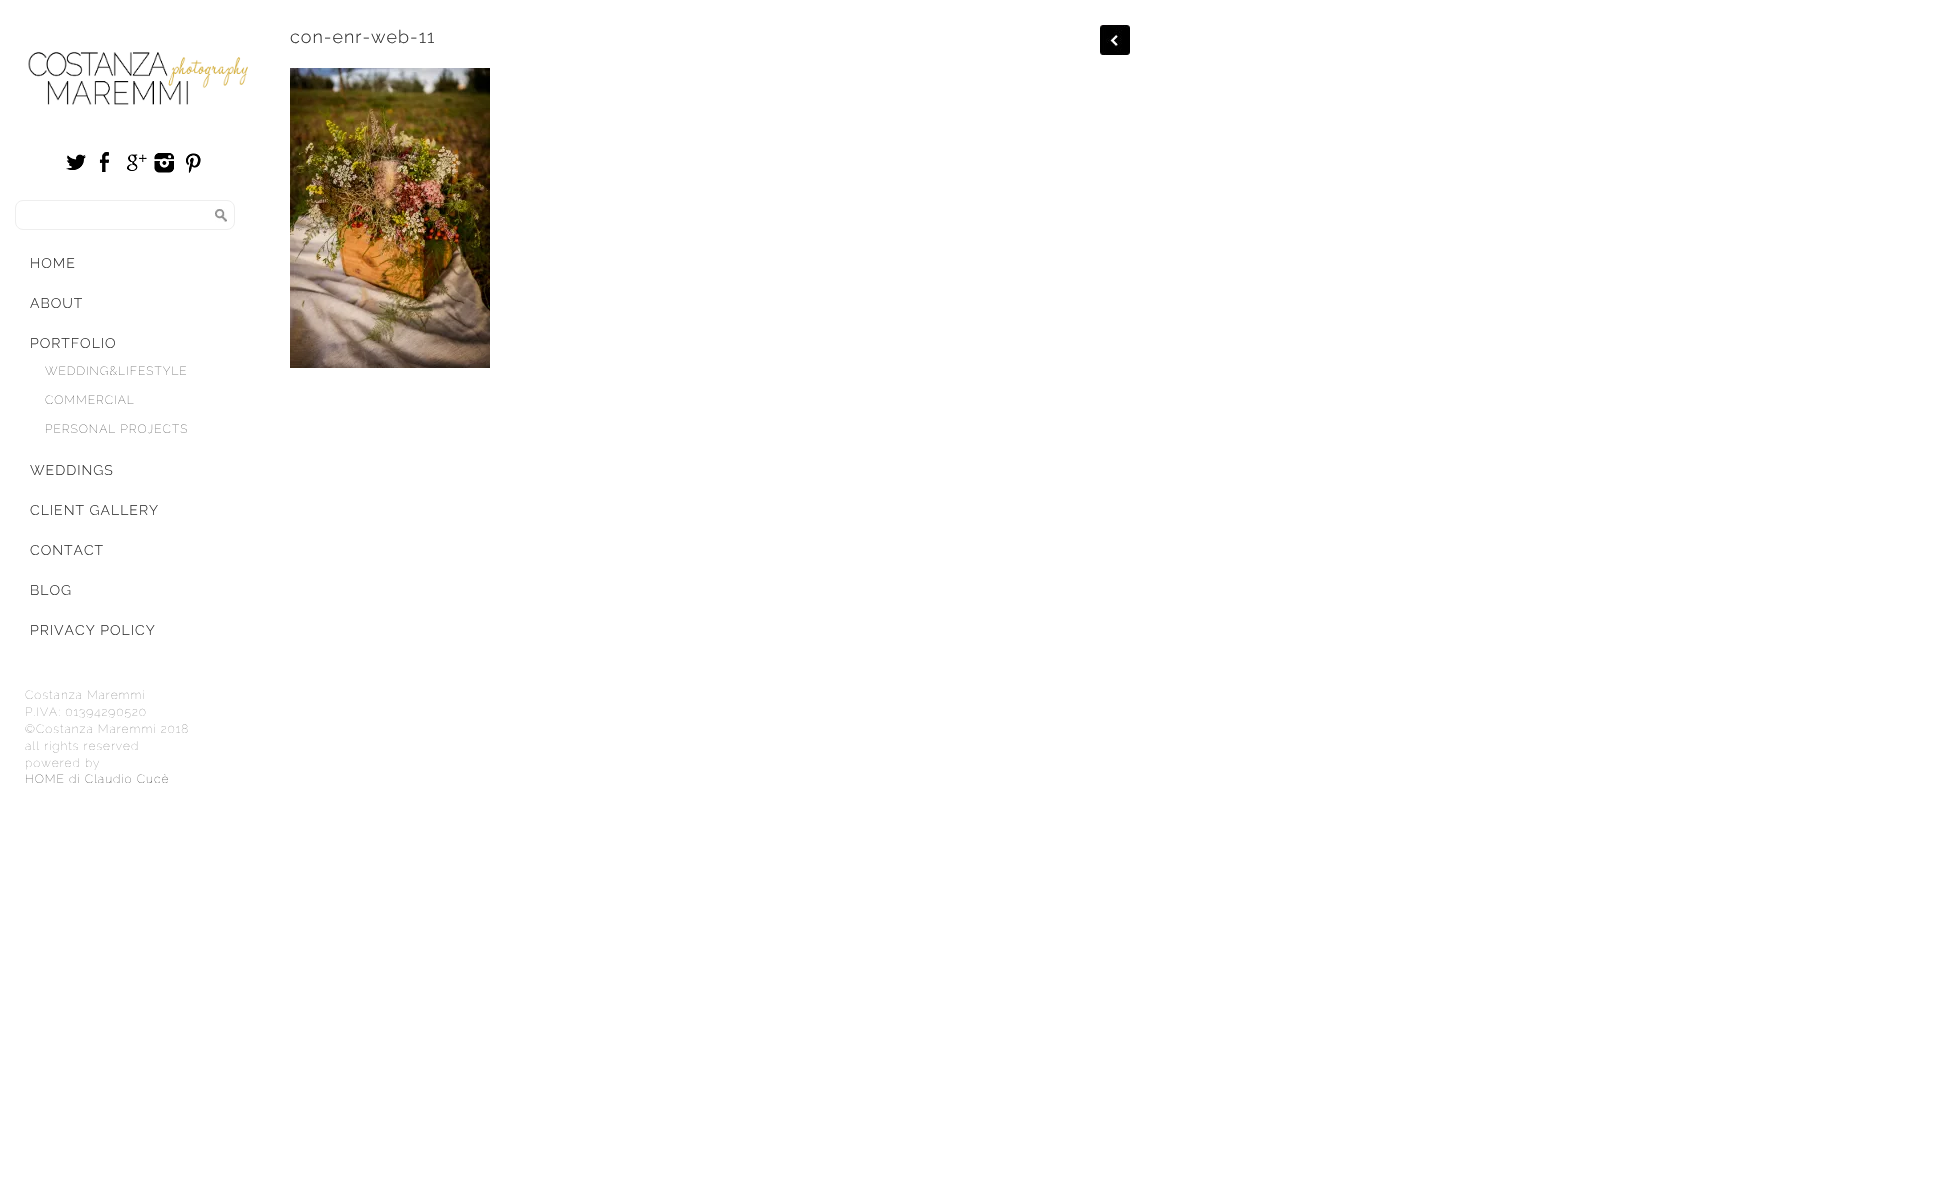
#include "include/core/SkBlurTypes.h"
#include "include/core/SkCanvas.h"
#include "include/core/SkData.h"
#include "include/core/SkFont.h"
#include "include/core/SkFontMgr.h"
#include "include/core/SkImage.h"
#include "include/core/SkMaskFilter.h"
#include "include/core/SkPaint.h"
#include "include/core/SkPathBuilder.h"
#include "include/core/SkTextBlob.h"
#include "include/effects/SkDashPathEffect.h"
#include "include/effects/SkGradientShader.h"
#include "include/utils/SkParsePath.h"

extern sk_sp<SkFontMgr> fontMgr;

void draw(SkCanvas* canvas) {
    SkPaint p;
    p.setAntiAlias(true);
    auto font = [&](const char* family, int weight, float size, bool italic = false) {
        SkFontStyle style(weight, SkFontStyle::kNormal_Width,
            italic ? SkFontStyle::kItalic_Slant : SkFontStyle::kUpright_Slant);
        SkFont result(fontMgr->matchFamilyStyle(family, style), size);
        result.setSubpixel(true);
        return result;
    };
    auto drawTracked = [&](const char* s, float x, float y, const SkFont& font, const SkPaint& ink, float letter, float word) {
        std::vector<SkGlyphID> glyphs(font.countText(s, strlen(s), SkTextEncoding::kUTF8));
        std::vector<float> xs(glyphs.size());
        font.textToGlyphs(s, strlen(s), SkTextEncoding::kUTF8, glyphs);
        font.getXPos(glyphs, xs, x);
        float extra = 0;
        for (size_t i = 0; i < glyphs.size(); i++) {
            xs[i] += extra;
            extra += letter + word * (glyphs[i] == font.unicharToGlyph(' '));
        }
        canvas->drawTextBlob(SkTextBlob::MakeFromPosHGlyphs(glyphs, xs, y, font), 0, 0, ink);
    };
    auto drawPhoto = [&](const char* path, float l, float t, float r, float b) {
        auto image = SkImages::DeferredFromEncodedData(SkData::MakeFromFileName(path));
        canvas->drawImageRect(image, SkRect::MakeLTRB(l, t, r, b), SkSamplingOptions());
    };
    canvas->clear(0xFFFFFFFF);
    auto font1 = font("Raleway", 300, 18);
    p.setColor(0xFF333333);
    drawTracked("con-enr-web-11", 290, 43, font1, p, 1, 0);
    drawPhoto("media/1.png", 1100, 25, 1130, 55);
    drawPhoto("media/2.png", 290, 68, 490, 368);
    drawPhoto("media/3.png", 28, 51, 248, 105);
    drawPhoto("media/4.png", 66, 154, 86, 170);
    drawPhoto("media/5.png", 99, 152, 109, 172);
    drawPhoto("media/6.png", 127, 154, 147, 171);
    drawPhoto("media/7.png", 154, 153, 174, 173);
    drawPhoto("media/8.png", 186, 153, 201, 173);
    p.setStyle(SkPaint::kStroke_Style);
    p.setStrokeWidth(1);
    p.setColor(0xFFEEEEEE);
    canvas->drawRoundRect(SkRect::MakeLTRB(15.5f, 200.5f, 234.5f, 229.5f), 7.5f, 7.5f, p);
    drawPhoto("media/9.png", 215, 209, 227, 222);
    auto font2 = font("Raleway", 300, 14);
    p.setStyle(SkPaint::kFill_Style);
    p.setColor(0xFF333333);
    {
        const struct { const char* s; float x, y; } items[] = {
            {"HOME", 30, 268},
            {"ABOUT", 30, 308},
            {"PORTFOLIO", 30, 348},
        };
        for (auto [s, x, y] : items) {
            drawTracked(s, x, y, font2, p, 1, 0);
        }
    }
    auto font3 = font("Raleway", 100, 12);
    {
        const struct { const char* s; float x, y; } items[] = {
            {"WEDDING&LIFESTYLE", 45, 375},
            {"COMMERCIAL", 45, 404},
            {"PERSONAL PROJECTS", 45, 433},
        };
        for (auto [s, x, y] : items) {
            drawTracked(s, x, y, font3, p, 1, 0);
        }
    }
    {
        const struct { const char* s; float x, y; } items[] = {
            {"WEDDINGS", 30, 475},
            {"CLIENT GALLERY", 30, 515},
            {"CONTACT", 30, 555},
            {"BLOG", 30, 595},
            {"PRIVACY POLICY", 30, 635},
        };
        for (auto [s, x, y] : items) {
            drawTracked(s, x, y, font2, p, 1, 0);
        }
    }
    p.setColor(0xFF888888);
    {
        const struct { const char* s; float x, y; } items[] = {
            {"Costanza Maremmi", 25, 699},
            {"P.IVA: 01394290520", 25, 716},
            {"©Costanza Maremmi 2018", 25, 733},
            {"all rights reserved", 25, 750},
            {"powered by", 25, 767},
        };
        for (auto [s, x, y] : items) {
            drawTracked(s, x, y, font3, p, 1, 0);
        }
    }
    p.setColor(0xFF333333);
    drawTracked("HOME di Claudio Cucè", 25, 783, font3, p, 1, 0);
}
